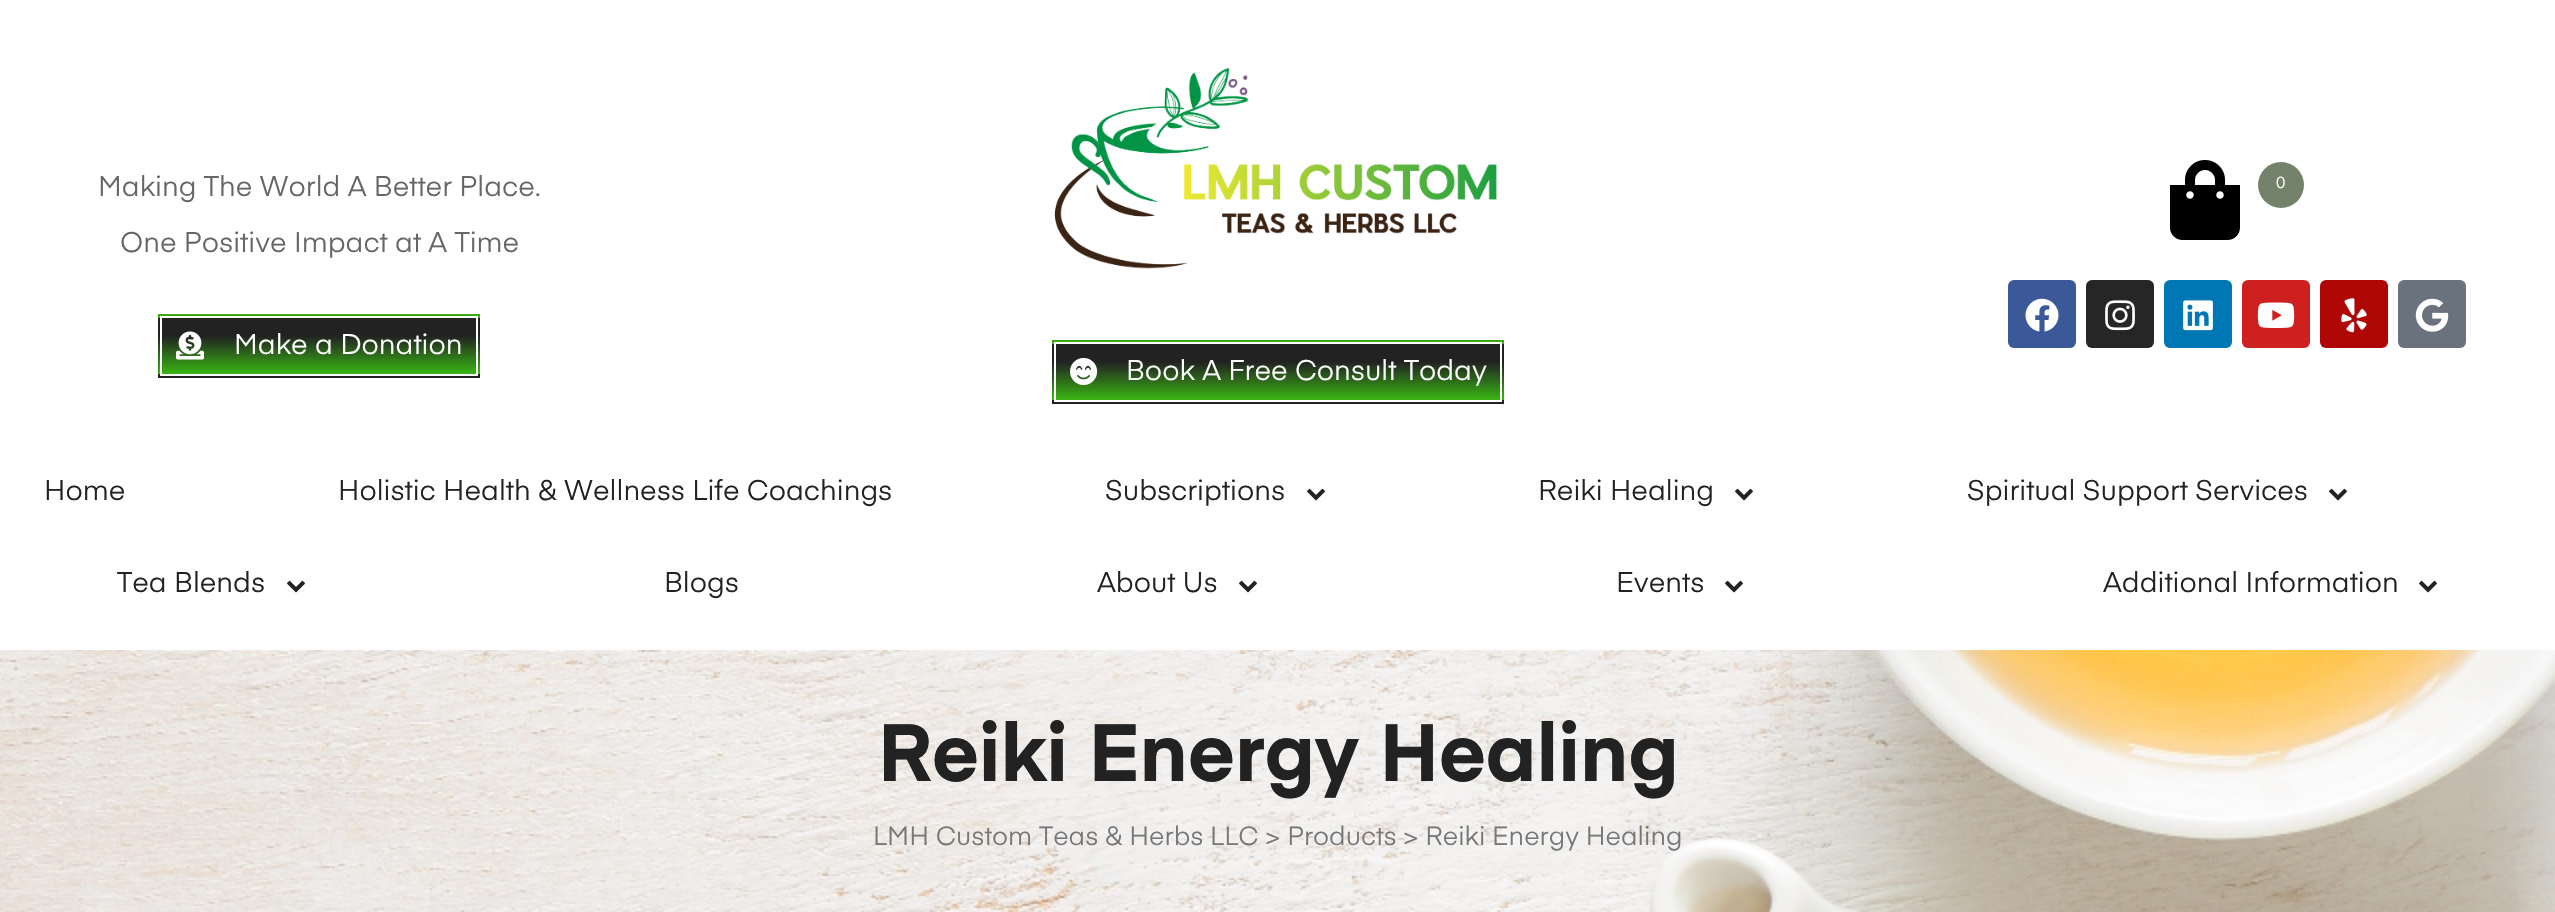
#include "include/core/SkBlurTypes.h"
#include "include/core/SkCanvas.h"
#include "include/core/SkData.h"
#include "include/core/SkFont.h"
#include "include/core/SkFontMgr.h"
#include "include/core/SkImage.h"
#include "include/core/SkMaskFilter.h"
#include "include/core/SkPaint.h"
#include "include/core/SkPathBuilder.h"
#include "include/core/SkTextBlob.h"
#include "include/effects/SkDashPathEffect.h"
#include "include/effects/SkGradientShader.h"
#include "include/utils/SkParsePath.h"

extern sk_sp<SkFontMgr> fontMgr;

void draw(SkCanvas* canvas) {
    SkPaint p;
    p.setAntiAlias(true);
    auto font = [&](const char* family, int weight, float size, bool italic = false) {
        SkFontStyle style(weight, SkFontStyle::kNormal_Width,
            italic ? SkFontStyle::kItalic_Slant : SkFontStyle::kUpright_Slant);
        SkFont result(fontMgr->matchFamilyStyle(family, style), size);
        result.setSubpixel(true);
        return result;
    };
    auto drawPhoto = [&](const char* path, float l, float t, float r, float b) {
        auto image = SkImages::DeferredFromEncodedData(SkData::MakeFromFileName(path));
        canvas->drawImageRect(image, SkRect::MakeLTRB(l, t, r, b), SkSamplingOptions());
    };
    canvas->clear(0xFFFFFFFF);
    auto font1 = font("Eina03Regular", 400, 28);
    p.setColor(0xFF666666);
    canvas->drawString("Making The World A Better Place.", 98, 196, font1, p);
    canvas->drawString("One Positive Impact at A Time", 120, 252, font1, p);
    {
        const SkColor colors[] = {0xFF222222, 0xFF39B612};
        const float stops[] = {0.32f, 1};
        const SkPoint ends[] = {{319, 262}, {319, 318}};
        p.setShader(SkGradientShader::MakeLinear(ends, colors, stops, 2, SkTileMode::kClamp));
        p.setAlpha(255);
    }
    canvas->drawRect(SkRect::MakeLTRB(156, 314, 482, 318), p);
    {
        const SkColor colors[] = {0xFF222222, 0xFF39B612};
        const float stops[] = {0.32f, 1};
        const SkPoint ends[] = {{319, 318}, {319, 374}};
        p.setShader(SkGradientShader::MakeLinear(ends, colors, stops, 2, SkTileMode::kClamp));
        p.setAlpha(255);
    }
    canvas->drawRect(SkRect::MakeLTRB(158, 318, 480, 374), p);
    {
        const SkColor colors[] = {0xFF222222, 0xFF39B612};
        const float stops[] = {0.32f, 1};
        const SkPoint ends[] = {{319, 374}, {319, 430}};
        p.setShader(SkGradientShader::MakeLinear(ends, colors, stops, 2, SkTileMode::kClamp));
        p.setAlpha(255);
    }
    canvas->drawRect(SkRect::MakeLTRB(156, 374, 482, 378), p);
    p.setStyle(SkPaint::kStroke_Style);
    p.setStrokeWidth(2);
    p.setShader(nullptr);
    p.setColor(0xFFFFFFFF);
    canvas->drawRect(SkRect::MakeLTRB(157, 313, 481, 379), p);
    canvas->drawRect(SkRect::MakeLTRB(161, 317, 477, 375), p);
    drawPhoto("media/1.png", 176, 331, 204, 360);
    p.setStyle(SkPaint::kFill_Style);
    canvas->drawString("Make a Donation", 234, 354, font1, p);
    drawPhoto("media/2.png", 2170, 160, 2240, 240);
    p.setColor(0xFF74826C);
    canvas->drawCircle(2281, 185, 23, p);
    auto font2 = font("Eina03Regular", 400, 16);
    p.setColor(0xFFFFFFFF);
    canvas->drawString("0", 2276, 188, font2, p);
    p.setColor(0xFF3B5998);
    canvas->drawRoundRect(SkRect::MakeLTRB(2008, 280, 2076, 348), 6, 6, p);
    drawPhoto("media/3.png", 2025, 298, 2059, 332);
    p.setColor(0xFF262626);
    canvas->drawRoundRect(SkRect::MakeLTRB(2086, 280, 2154, 348), 6, 6, p);
    drawPhoto("media/4.png", 2105, 300, 2135, 331);
    p.setColor(0xFF0077B5);
    canvas->drawRoundRect(SkRect::MakeLTRB(2164, 280, 2232, 348), 6, 6, p);
    drawPhoto("media/5.png", 2183, 300, 2213, 331);
    p.setColor(0xFFCD201F);
    canvas->drawRoundRect(SkRect::MakeLTRB(2242, 280, 2310, 348), 6, 6, p);
    drawPhoto("media/6.png", 2257, 302, 2295, 328);
    p.setColor(0xFFAF0606);
    canvas->drawRoundRect(SkRect::MakeLTRB(2320, 280, 2388, 348), 6, 6, p);
    drawPhoto("media/7.png", 2341, 298, 2367, 333);
    p.setColor(0xFF69727D);
    canvas->drawRoundRect(SkRect::MakeLTRB(2398, 280, 2466, 348), 6, 6, p);
    drawPhoto("media/8.png", 2415, 298, 2449, 332);
    drawPhoto("media/9.png", 1054, 68, 1497, 269);
    {
        const SkColor colors[] = {0xFF222222, 0xFF39B612};
        const float stops[] = {0.32f, 1};
        const SkPoint ends[] = {{1278, 288}, {1278, 344}};
        p.setShader(SkGradientShader::MakeLinear(ends, colors, stops, 2, SkTileMode::kClamp));
        p.setAlpha(255);
    }
    canvas->drawRect(SkRect::MakeLTRB(1050, 340, 1506, 344), p);
    {
        const SkColor colors[] = {0xFF222222, 0xFF39B612};
        const float stops[] = {0.32f, 1};
        const SkPoint ends[] = {{1278, 344}, {1278, 400}};
        p.setShader(SkGradientShader::MakeLinear(ends, colors, stops, 2, SkTileMode::kClamp));
        p.setAlpha(255);
    }
    canvas->drawRect(SkRect::MakeLTRB(1052, 344, 1504, 400), p);
    {
        const SkColor colors[] = {0xFF222222, 0xFF39B612};
        const float stops[] = {0.32f, 1};
        const SkPoint ends[] = {{1278, 400}, {1278, 456}};
        p.setShader(SkGradientShader::MakeLinear(ends, colors, stops, 2, SkTileMode::kClamp));
        p.setAlpha(255);
    }
    canvas->drawRect(SkRect::MakeLTRB(1050, 400, 1506, 404), p);
    p.setStyle(SkPaint::kStroke_Style);
    p.setShader(nullptr);
    p.setColor(0xFFFFFFFF);
    canvas->drawRect(SkRect::MakeLTRB(1051, 339, 1505, 405), p);
    canvas->drawRect(SkRect::MakeLTRB(1055, 343, 1501, 401), p);
    drawPhoto("media/10.png", 1070, 357, 1098, 386);
    p.setStyle(SkPaint::kFill_Style);
    canvas->drawString("Book A Free Consult Today", 1126, 380, font1, p);
    p.setColor(0xFF222222);
    {
        const struct { const char* s; float x, y; } items[] = {
            {"Home", 44, 500},
            {"Holistic Health & Wellness Life Coachings", 338, 500},
            {"Subscriptions", 1105, 500},
        };
        for (auto [s, x, y] : items) {
            canvas->drawString(s, x, y, font1, p);
        }
    }
    drawPhoto("media/11.png", 1307, 488, 1325, 501);
    canvas->drawString("Reiki Healing", 1538, 500, font1, p);
    drawPhoto("media/11.png", 1735, 488, 1753, 501);
    canvas->drawString("Spiritual Support Services", 1967, 500, font1, p);
    drawPhoto("media/11.png", 2329, 488, 2347, 501);
    canvas->drawString("Tea Blends", 117, 592, font1, p);
    drawPhoto("media/11.png", 287, 580, 305, 593);
    canvas->drawString("Blogs", 664, 592, font1, p);
    canvas->drawString("About Us", 1097, 592, font1, p);
    drawPhoto("media/11.png", 1239, 580, 1257, 593);
    canvas->drawString("Events", 1616, 592, font1, p);
    drawPhoto("media/11.png", 1725, 580, 1743, 593);
    canvas->drawString("Additional Information", 2103, 592, font1, p);
    drawPhoto("media/11.png", 2419, 580, 2437, 593);
    drawPhoto("media/12.png", 0, 650, 2555, 912);
    auto font3 = font("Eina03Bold", 700, 80);
    canvas->drawString("Reiki Energy Healing", 878, 781, font3, p);
    auto font4 = font("Eina03Regular", 400, 26);
    p.setColor(0xFF777777);
    canvas->drawString("LMH Custom Teas & Herbs LLC > Products > Reiki Energy Healing", 873, 845, font4, p);
}
